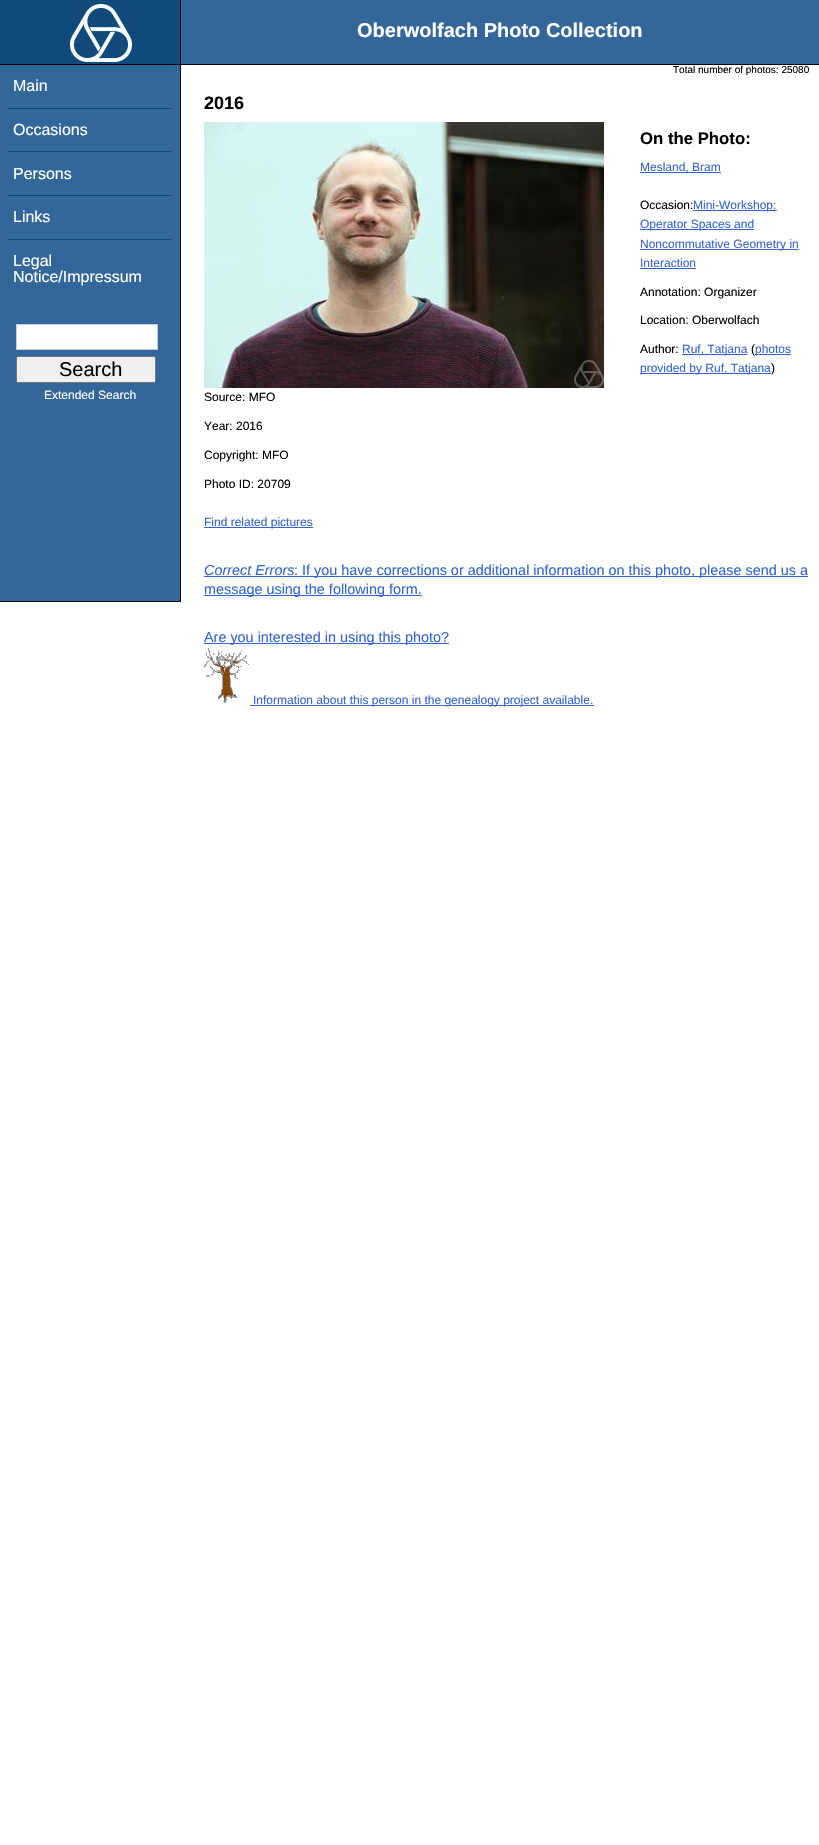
#include "include/core/SkBlurTypes.h"
#include "include/core/SkCanvas.h"
#include "include/core/SkData.h"
#include "include/core/SkFont.h"
#include "include/core/SkFontMgr.h"
#include "include/core/SkImage.h"
#include "include/core/SkMaskFilter.h"
#include "include/core/SkPaint.h"
#include "include/core/SkPathBuilder.h"
#include "include/core/SkTextBlob.h"
#include "include/effects/SkDashPathEffect.h"
#include "include/effects/SkGradientShader.h"
#include "include/utils/SkParsePath.h"

extern sk_sp<SkFontMgr> fontMgr;

void draw(SkCanvas* canvas) {
    SkPaint p;
    p.setAntiAlias(true);
    auto font = [&](const char* family, int weight, float size, bool italic = false) {
        SkFontStyle style(weight, SkFontStyle::kNormal_Width,
            italic ? SkFontStyle::kItalic_Slant : SkFontStyle::kUpright_Slant);
        SkFont result(fontMgr->matchFamilyStyle(family, style), size);
        result.setSubpixel(true);
        return result;
    };
    auto drawPhoto = [&](const char* path, float l, float t, float r, float b) {
        auto image = SkImages::DeferredFromEncodedData(SkData::MakeFromFileName(path));
        canvas->drawImageRect(image, SkRect::MakeLTRB(l, t, r, b), SkSamplingOptions());
    };
    canvas->clear(0xFFFFFFFF);
    {
        const struct { float l, t, r, b; SkColor color; } items[] = {
            {181, 0, 819, 64, 0xFF336699},
            {0, 64, 819, 65, 0xFF000000},
            {0, 0, 180, 64, 0xFF104A7B},
            {180, 0, 181, 64, 0xFF000000},
        };
        for (auto [l, t, r, b, color] : items) {
            p.setColor(color);
            canvas->drawRect(SkRect::MakeLTRB(l, t, r, b), p);
        }
    }
    drawPhoto("media/1.png", 70, 4, 132, 62);
    auto font1 = font("Liberation Sans", 700, 20);
    p.setColor(0xFFFFFFFF);
    canvas->drawString("Oberwolfach Photo Collection", 357, 37, font1, p);
    auto font2 = font("Liberation Sans", 400, 10);
    p.setColor(0xFF000000);
    canvas->drawString("Total number of photos: 25080", 673, 73, font2, p);
    {
        const struct { float l, t, r, b; SkColor color; } items[] = {
            {0, 65, 180, 601, 0xFF336699},
            {180, 65, 181, 602, 0xFF000000},
            {0, 601, 181, 602, 0xFF000000},
        };
        for (auto [l, t, r, b, color] : items) {
            p.setColor(color);
            canvas->drawRect(SkRect::MakeLTRB(l, t, r, b), p);
        }
    }
    auto font3 = font("Liberation Sans", 400, 16);
    p.setColor(0xFFFFFFFF);
    canvas->drawString("Main", 13, 91, font3, p);
    p.setColor(0xFF104A7B);
    canvas->drawRect(SkRect::MakeLTRB(8, 108, 172, 109), p);
    p.setColor(0xFFFFFFFF);
    canvas->drawString("Occasions", 13, 135, font3, p);
    p.setColor(0xFF104A7B);
    canvas->drawRect(SkRect::MakeLTRB(8, 151, 172, 152), p);
    p.setColor(0xFFFFFFFF);
    canvas->drawString("Persons", 13, 179, font3, p);
    p.setColor(0xFF104A7B);
    canvas->drawRect(SkRect::MakeLTRB(8, 195, 172, 196), p);
    p.setColor(0xFFFFFFFF);
    canvas->drawString("Links", 13, 222, font3, p);
    p.setColor(0xFF104A7B);
    canvas->drawRect(SkRect::MakeLTRB(8, 239, 172, 240), p);
    p.setColor(0xFFFFFFFF);
    canvas->drawString("Legal", 13, 266, font3, p);
    canvas->drawString("Notice/Impressum", 13, 282, font3, p);
    canvas->drawRect(SkRect::MakeLTRB(16.5f, 324.5f, 157.5f, 349.5f), p);
    p.setStyle(SkPaint::kStroke_Style);
    p.setStrokeWidth(1);
    p.setColor(0xFFCCCCCC);
    canvas->drawRect(SkRect::MakeLTRB(16.5f, 324.5f, 157.5f, 349.5f), p);
    p.setStyle(SkPaint::kFill_Style);
    p.setColor(0xFFEFEFEF);
    canvas->drawRoundRect(SkRect::MakeLTRB(16.5f, 356.5f, 155.5f, 382.5f), 1.5f, 1.5f, p);
    p.setStyle(SkPaint::kStroke_Style);
    p.setColor(0xFF767676);
    canvas->drawRoundRect(SkRect::MakeLTRB(16.5f, 356.5f, 155.5f, 382.5f), 1.5f, 1.5f, p);
    auto font4 = font("Liberation Sans", 400, 20);
    p.setStyle(SkPaint::kFill_Style);
    p.setColor(0xFF000000);
    canvas->drawString("Search", 59, 376, font4, p);
    auto font5 = font("Liberation Sans", 400, 12);
    p.setColor(0xFFFFFFFF);
    canvas->drawString("Extended Search", 44, 399, font5, p);
    auto font6 = font("Liberation Sans", 700, 18);
    p.setColor(0xFF000000);
    canvas->drawString("2016", 204, 109, font6, p);
    drawPhoto("media/2.png", 204, 122, 604, 388);
    auto font7 = font("Liberation Sans", 700, 16.75f);
    canvas->drawString("On the Photo:", 640, 144, font7, p);
    p.setColor(0xFF3366CC);
    canvas->drawRect(SkRect::MakeLTRB(640, 172, 721, 173), p);
    canvas->drawString("Mesland, Bram", 640, 171, font5, p);
    p.setColor(0xFF000000);
    canvas->drawString("Occasion:", 640, 209, font5, p);
    p.setColor(0xFF3366CC);
    canvas->drawRect(SkRect::MakeLTRB(693, 210, 777, 211), p);
    canvas->drawString("Mini-Workshop:", 693, 209, font5, p);
    canvas->drawRect(SkRect::MakeLTRB(640, 229, 754, 230), p);
    canvas->drawString("Operator Spaces and", 640, 228, font5, p);
    canvas->drawRect(SkRect::MakeLTRB(640, 249, 799, 250), p);
    canvas->drawString("Noncommutative Geometry in", 640, 248, font5, p);
    canvas->drawString("Interaction", 640, 267, font5, p);
    canvas->drawRect(SkRect::MakeLTRB(640, 268, 696, 269), p);
    p.setColor(0xFF000000);
    {
        const struct { const char* s; float x, y; } items[] = {
            {"Annotation: Organizer", 640, 296},
            {"Location: Oberwolfach", 640, 324},
            {"Author:", 640, 353},
        };
        for (auto [s, x, y] : items) {
            canvas->drawString(s, x, y, font5, p);
        }
    }
    p.setColor(0xFF3366CC);
    canvas->drawRect(SkRect::MakeLTRB(682, 354, 747, 355), p);
    canvas->drawString("Ruf, Tatjana", 682, 353, font5, p);
    p.setColor(0xFF000000);
    canvas->drawString("(", 751, 353, font5, p);
    p.setColor(0xFF3366CC);
    canvas->drawRect(SkRect::MakeLTRB(755, 354, 791, 355), p);
    canvas->drawString("photos", 755, 353, font5, p);
    canvas->drawRect(SkRect::MakeLTRB(640, 373, 771, 374), p);
    canvas->drawString("provided by Ruf, Tatjana", 640, 372, font5, p);
    p.setColor(0xFF000000);
    {
        const struct { const char* s; float x, y; } items[] = {
            {")", 771, 372},
            {"Source: MFO", 204, 401},
            {"Year: 2016", 204, 430},
            {"Copyright: MFO", 204, 459},
            {"Photo ID: 20709", 204, 488},
        };
        for (auto [s, x, y] : items) {
            canvas->drawString(s, x, y, font5, p);
        }
    }
    p.setColor(0xFF3366CC);
    canvas->drawRect(SkRect::MakeLTRB(204, 527, 313, 528), p);
    canvas->drawString("Find related pictures", 204, 526, font5, p);
    auto font8 = font("Liberation Sans", 400, 14.4f, true);
    canvas->drawString("Correct Errors", 204, 575, font8, p);
    canvas->drawRect(SkRect::MakeLTRB(204, 576, 808, 577), p);
    auto font9 = font("Liberation Sans", 400, 14.4f);
    canvas->drawString(": If you have corrections or additional information on this photo, please send us a", 294, 575, font9, p);
    canvas->drawRect(SkRect::MakeLTRB(204, 595, 422, 596), p);
    canvas->drawString("message using the following form.", 204, 594, font9, p);
    canvas->drawRect(SkRect::MakeLTRB(204, 643, 449, 644), p);
    canvas->drawString("Are you interested in using this photo?", 204, 642, font9, p);
    drawPhoto("media/3.png", 204, 648, 249, 703);
    canvas->drawRect(SkRect::MakeLTRB(250, 705, 594, 706), p);
    canvas->drawString("Information about this person in the genealogy project available.", 253, 704, font5, p);
}
